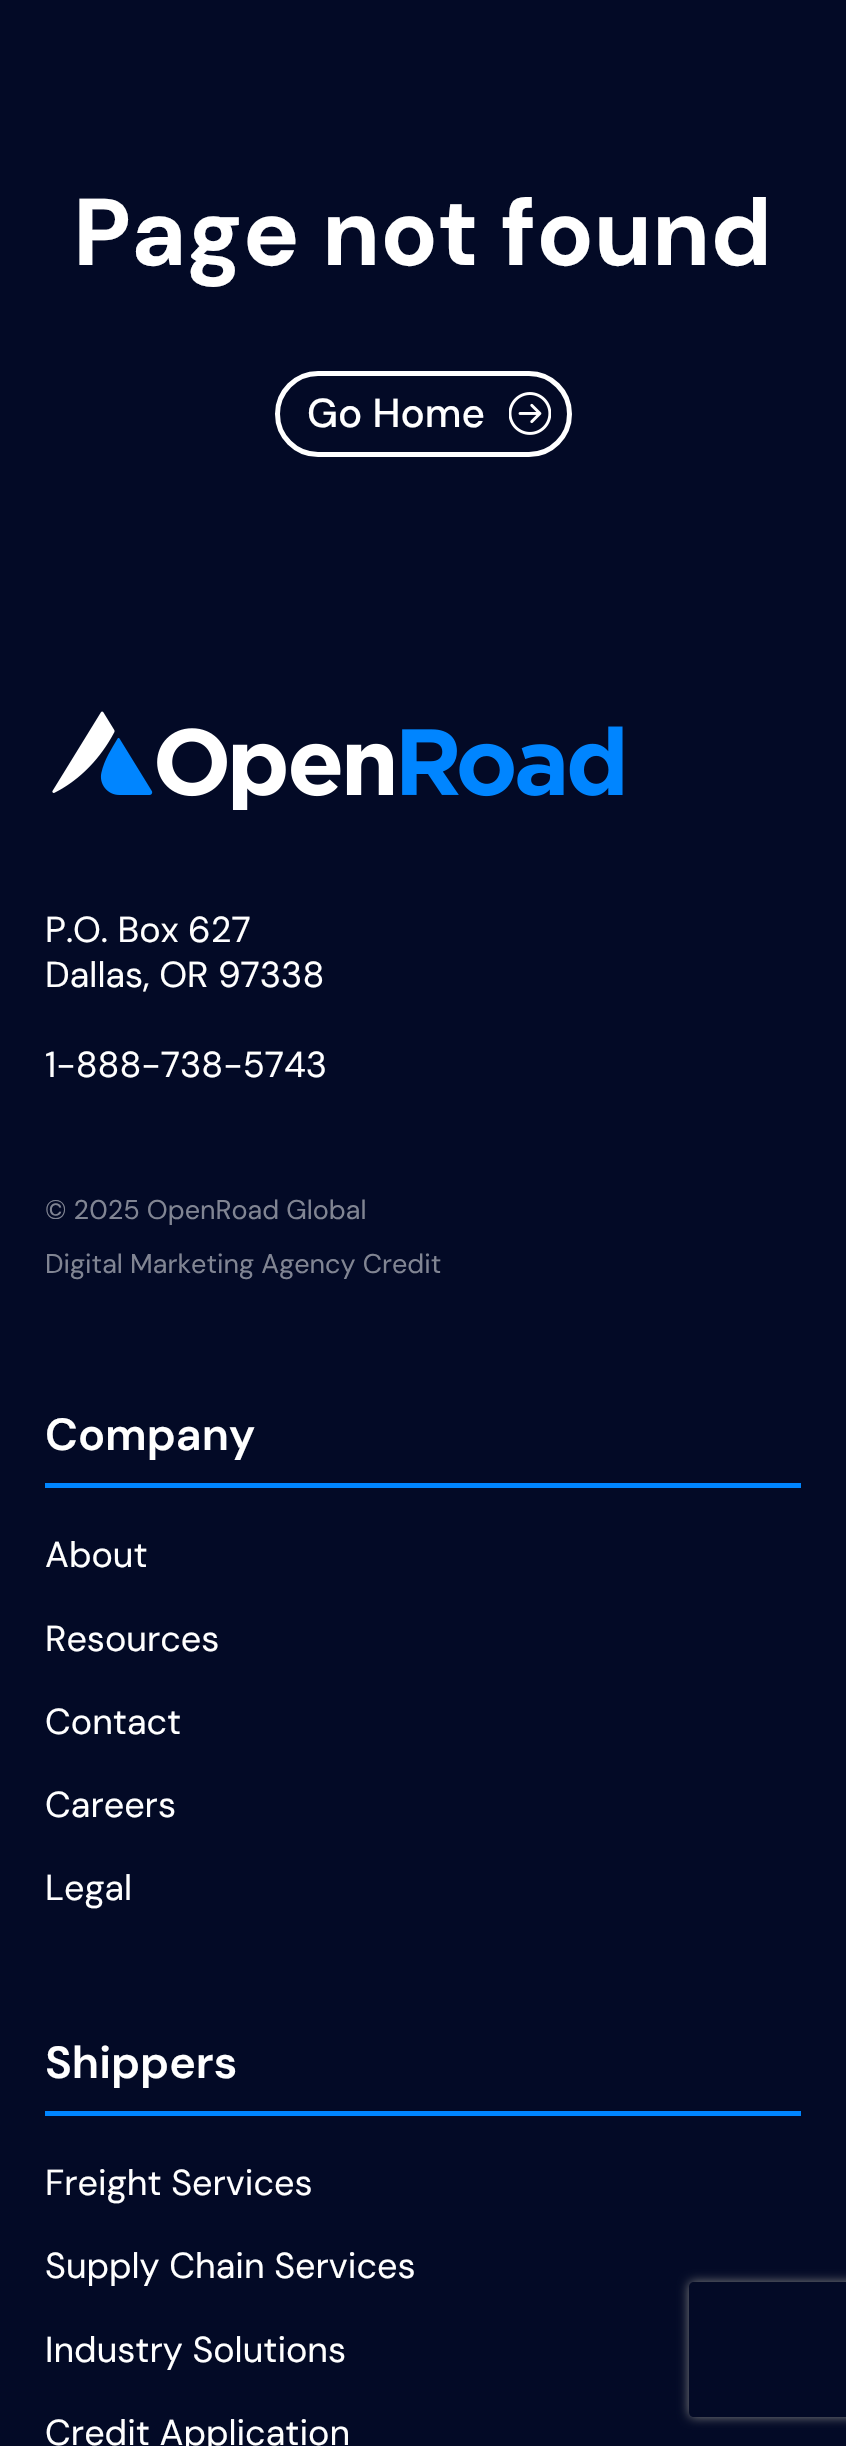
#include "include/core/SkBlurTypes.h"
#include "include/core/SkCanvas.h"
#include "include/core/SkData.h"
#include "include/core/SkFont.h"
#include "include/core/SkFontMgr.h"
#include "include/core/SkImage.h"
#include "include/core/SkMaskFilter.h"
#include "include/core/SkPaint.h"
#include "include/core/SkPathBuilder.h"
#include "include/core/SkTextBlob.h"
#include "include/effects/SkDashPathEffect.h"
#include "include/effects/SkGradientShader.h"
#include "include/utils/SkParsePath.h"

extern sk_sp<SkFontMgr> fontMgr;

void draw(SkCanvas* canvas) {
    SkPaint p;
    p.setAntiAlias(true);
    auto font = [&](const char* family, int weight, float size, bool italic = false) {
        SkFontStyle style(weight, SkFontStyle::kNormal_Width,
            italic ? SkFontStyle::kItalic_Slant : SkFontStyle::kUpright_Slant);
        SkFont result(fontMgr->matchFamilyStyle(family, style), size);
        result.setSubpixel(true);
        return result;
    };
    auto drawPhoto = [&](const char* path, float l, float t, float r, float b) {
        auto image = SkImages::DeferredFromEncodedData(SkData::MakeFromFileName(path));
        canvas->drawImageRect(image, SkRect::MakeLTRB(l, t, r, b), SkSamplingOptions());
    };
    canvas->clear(0xFF030A26);
    auto font1 = font("DM Sans", 700, 94.5f);
    p.setColor(0xFFFFFFFF);
    canvas->drawString("Page not found", 73, 265, font1, p);
    p.setStyle(SkPaint::kStroke_Style);
    p.setStrokeWidth(5);
    canvas->drawRoundRect(SkRect::MakeLTRB(277.5f, 373.5f, 569.5f, 454.5f), 40.5f, 40.5f, p);
    auto font2 = font("DM Sans", 500, 40.5f);
    p.setStyle(SkPaint::kFill_Style);
    canvas->drawString("Go Home", 307, 427, font2, p);
    drawPhoto("media/1.png", 509, 392, 551, 435);
    drawPhoto("media/2.png", 52, 711, 623, 810);
    auto font3 = font("DM Sans", 400, 36);
    {
        const struct { const char* s; float x, y; } items[] = {
            {"P.O. Box 627", 45, 942},
            {"Dallas, OR 97338", 45, 987},
            {"1-888-738-5743", 45, 1077},
        };
        for (auto [s, x, y] : items) {
            canvas->drawString(s, x, y, font3, p);
        }
    }
    auto font4 = font("DM Sans", 400, 27);
    p.setColor(0xFF818593);
    canvas->drawString("© 2025 OpenRoad Global", 45, 1219, font4, p);
    canvas->drawString("Digital Marketing Agency Credit", 45, 1273, font4, p);
    p.setColor(0xFF0085FF);
    canvas->drawRect(SkRect::MakeLTRB(45, 1483, 801, 1488), p);
    auto font5 = font("DM Sans", 600, 45);
    p.setColor(0xFFFFFFFF);
    canvas->drawString("Company", 45, 1450, font5, p);
    {
        const struct { const char* s; float x, y; } items[] = {
            {"About", 45, 1567},
            {"Resources", 45, 1651},
            {"Contact", 45, 1734},
            {"Careers", 45, 1817},
            {"Legal", 45, 1900},
        };
        for (auto [s, x, y] : items) {
            canvas->drawString(s, x, y, font3, p);
        }
    }
    p.setColor(0xFF0085FF);
    canvas->drawRect(SkRect::MakeLTRB(45, 2111, 801, 2116), p);
    p.setColor(0xFFFFFFFF);
    canvas->drawString("Shippers", 45, 2078, font5, p);
    {
        const struct { const char* s; float x, y; } items[] = {
            {"Freight Services", 45, 2195},
            {"Supply Chain Services", 45, 2278},
            {"Industry Solutions", 45, 2362},
            {"Credit Application", 45, 2445},
        };
        for (auto [s, x, y] : items) {
            canvas->drawString(s, x, y, font3, p);
        }
    }
    canvas->save();
    canvas->clipPath(SkPathBuilder(SkPathFillType::kEvenOdd).moveTo(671, 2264).lineTo(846, 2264).lineTo(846, 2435).lineTo(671, 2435).close().moveTo(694, 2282).lineTo(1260, 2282).cubicTo(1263, 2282, 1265, 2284, 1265, 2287).lineTo(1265, 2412).cubicTo(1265, 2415, 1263, 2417, 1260, 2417).lineTo(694, 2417).cubicTo(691, 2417, 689, 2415, 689, 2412).lineTo(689, 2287).cubicTo(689, 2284, 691, 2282, 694, 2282).close().detach(), true);
    p.setColor(0xFF808080);
    p.setMaskFilter(SkMaskFilter::MakeBlur(kNormal_SkBlurStyle, 5.5f));
    canvas->drawRoundRect(SkRect::MakeLTRB(689, 2282, 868, 2417), 5, 5, p);
    p.setMaskFilter(nullptr);
    canvas->restore();
}
